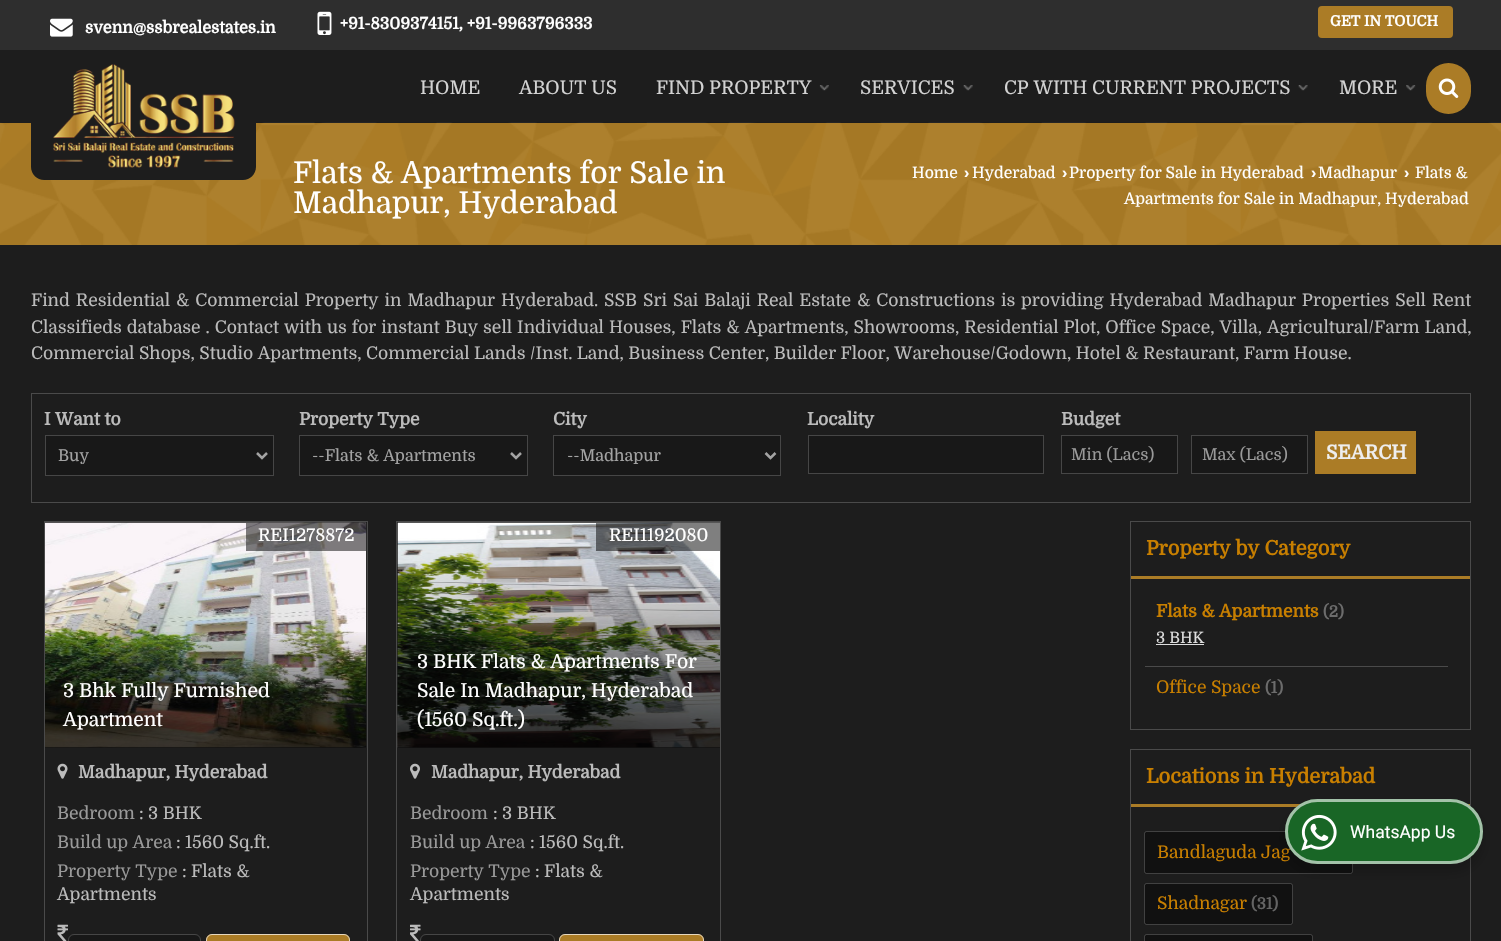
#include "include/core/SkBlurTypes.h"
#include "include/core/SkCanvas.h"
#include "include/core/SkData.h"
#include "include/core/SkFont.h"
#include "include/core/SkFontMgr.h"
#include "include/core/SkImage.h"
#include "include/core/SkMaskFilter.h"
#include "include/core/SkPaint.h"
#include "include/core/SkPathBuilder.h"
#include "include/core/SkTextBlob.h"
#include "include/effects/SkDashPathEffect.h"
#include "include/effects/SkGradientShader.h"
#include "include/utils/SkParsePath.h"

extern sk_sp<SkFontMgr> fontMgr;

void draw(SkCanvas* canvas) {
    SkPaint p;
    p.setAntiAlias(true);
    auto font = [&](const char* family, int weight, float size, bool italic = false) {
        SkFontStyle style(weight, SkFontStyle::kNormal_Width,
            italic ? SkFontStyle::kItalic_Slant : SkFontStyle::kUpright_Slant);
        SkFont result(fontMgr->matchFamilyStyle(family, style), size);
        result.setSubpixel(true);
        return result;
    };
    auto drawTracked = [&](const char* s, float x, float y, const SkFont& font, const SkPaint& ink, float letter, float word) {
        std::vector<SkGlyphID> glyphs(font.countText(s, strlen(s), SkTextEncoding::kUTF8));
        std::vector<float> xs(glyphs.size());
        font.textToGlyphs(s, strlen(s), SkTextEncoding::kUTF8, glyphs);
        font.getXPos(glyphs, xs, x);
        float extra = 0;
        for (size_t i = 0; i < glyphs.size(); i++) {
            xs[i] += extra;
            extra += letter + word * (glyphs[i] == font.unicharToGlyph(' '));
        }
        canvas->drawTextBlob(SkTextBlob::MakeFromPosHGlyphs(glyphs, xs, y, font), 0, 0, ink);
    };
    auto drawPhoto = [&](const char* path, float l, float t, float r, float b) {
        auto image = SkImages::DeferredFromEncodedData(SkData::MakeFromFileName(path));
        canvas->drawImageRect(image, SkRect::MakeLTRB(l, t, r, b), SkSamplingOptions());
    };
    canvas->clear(0xFF1D1D1D);
    p.setColor(0xFF2E2E2E);
    canvas->drawRect(SkRect::MakeLTRB(0, 0, 1501, 50), p);
    drawPhoto("media/1.png", 50, 18, 73, 37);
    auto font1 = font("Domine", 700, 16.25f);
    p.setColor(0xFFFFFFFF);
    canvas->drawString("svenn@ssbrealestates.in", 85, 33, font1, p);
    drawPhoto("media/2.png", 317, 11, 332, 35);
    canvas->drawString("+91-8309374151, +91-9963796333", 340, 29, font1, p);
    p.setColor(0xFFAB7C26);
    canvas->drawRoundRect(SkRect::MakeLTRB(1318, 6, 1453, 38), 4, 4, p);
    auto font2 = font("Domine", 700, 14.5f);
    p.setColor(0xFFFFFFFF);
    canvas->drawString("GET IN TOUCH", 1330, 26, font2, p);
    p.setColor(0xFFAB7C26);
    canvas->drawRect(SkRect::MakeLTRB(0, 123, 1501, 245), p);
    drawPhoto("media/9.png", 0, 122, 1501, 245);
    p.setColor(0xFF1D1D1D);
    canvas->drawPath(SkPathBuilder().moveTo(31, 50).lineTo(256, 50).lineTo(256, 167).cubicTo(256, 174, 250, 180, 243, 180).lineTo(44, 180).cubicTo(37, 180, 31, 174, 31, 167).close().detach(), p);
    drawPhoto("media/3.png", 53, 64, 235, 168);
    auto font3 = font("Domine", 400, 18.75f);
    p.setColor(0xFFD2D2D2);
    {
        const struct { const char* s; float x, y; } items[] = {
            {"HOME", 420, 94},
            {"ABOUT US", 519, 94},
            {"FIND PROPERTY", 656, 94},
        };
        for (auto [s, x, y] : items) {
            canvas->drawString(s, x, y, font3, p);
        }
    }
    drawPhoto("media/4.png", 819, 85, 829, 91);
    canvas->drawString("SERVICES", 860, 94, font3, p);
    drawPhoto("media/5.png", 963, 85, 973, 91);
    canvas->drawString("CP WITH CURRENT PROJECTS", 1004, 94, font3, p);
    drawPhoto("media/6.png", 1298, 85, 1308, 91);
    canvas->drawString("MORE", 1339, 94, font3, p);
    drawPhoto("media/7.png", 1406, 85, 1416, 91);
    p.setColor(0xFFAB7C26);
    canvas->drawRoundRect(SkRect::MakeLTRB(1426, 63, 1471, 114), 22.5f, 22.5f, p);
    drawPhoto("media/8.png", 1438, 78, 1459, 98);
    auto font4 = font("Domine", 400, 30);
    p.setColor(0xFFFFFFFF);
    canvas->drawString("Flats & Apartments for Sale in", 293, 183, font4, p);
    canvas->drawString("Madhapur, Hyderabad", 293, 213, font4, p);
    auto font5 = font("Domine", 400, 15.75f);
    canvas->drawString("Home", 912, 178, font5, p);
    auto font6 = font("Liberation Sans", 700, 15.75f);
    canvas->drawString("›", 964, 178, font6, p);
    canvas->drawString("Hyderabad", 972, 178, font5, p);
    canvas->drawString("›", 1062, 178, font6, p);
    canvas->drawString("Property for Sale in Hyderabad", 1069, 178, font5, p);
    canvas->drawString("›", 1311, 178, font6, p);
    canvas->drawString("Madhapur", 1318, 178, font5, p);
    canvas->drawString("›", 1404, 178, font6, p);
    canvas->drawString("Flats &", 1415, 178, font5, p);
    canvas->drawString("Apartments for Sale in Madhapur, Hyderabad", 1124, 204, font5, p);
    auto font7 = font("Domine", 400, 17.5f);
    p.setColor(0xFFBBBBBB);
    drawTracked("Find Residential & Commercial Property in Madhapur Hyderabad. SSB Sri Sai Balaji Real Estate & Constructions is", 31, 306, font7, p, 0, 1.5f);
    drawTracked("providing Hyderabad Madhapur Properties Sell Rent", 1021, 306, font7, p, 0, 1.5f);
    drawTracked("Classifieds database . Contact with us for instant Buy sell Individual Houses, Flats & Apartments, Showrooms, Residential Plot, Office Space, Villa, Agricultural/Farm Land,", 31, 333, font7, p, 0, 0.5f);
    canvas->drawString("Commercial Shops, Studio Apartments, Commercial Lands /Inst. Land, Business Center, Builder Floor, Warehouse/Godown, Hotel & Restaurant, Farm House.", 31, 359, font7, p);
    p.setStyle(SkPaint::kStroke_Style);
    p.setStrokeWidth(1);
    p.setColor(0xFF4A4A4A);
    canvas->drawRect(SkRect::MakeLTRB(31.5f, 393.5f, 1470.5f, 502.5f), p);
    auto font8 = font("Domine", 700, 17.5f);
    p.setStyle(SkPaint::kFill_Style);
    p.setColor(0xFFBBBBBB);
    canvas->drawString("I Want to", 44, 425, font8, p);
    p.setColor(0xFF181818);
    canvas->drawRect(SkRect::MakeLTRB(45.5f, 435.5f, 273.5f, 475.5f), p);
    p.setStyle(SkPaint::kStroke_Style);
    p.setColor(0xFF464646);
    canvas->drawRect(SkRect::MakeLTRB(45.5f, 435.5f, 273.5f, 475.5f), p);
    p.setStrokeWidth(2.5f);
    p.setColor(0xFFA3A3A3);
    canvas->drawPath(SkPathBuilder().moveTo(257, 453).lineTo(262, 458).lineTo(267, 453).detach(), p);
    auto font9 = font("Domine", 400, 16.25f);
    p.setStyle(SkPaint::kFill_Style);
    canvas->drawString("Buy", 58, 461, font9, p);
    p.setColor(0xFFBBBBBB);
    canvas->drawString("Property Type", 299, 425, font8, p);
    p.setColor(0xFF181818);
    canvas->drawRect(SkRect::MakeLTRB(299.5f, 435.5f, 527.5f, 475.5f), p);
    p.setStyle(SkPaint::kStroke_Style);
    p.setStrokeWidth(1);
    p.setColor(0xFF464646);
    canvas->drawRect(SkRect::MakeLTRB(299.5f, 435.5f, 527.5f, 475.5f), p);
    p.setStrokeWidth(2.5f);
    p.setColor(0xFFA3A3A3);
    canvas->drawPath(SkPathBuilder().moveTo(511, 453).lineTo(516, 458).lineTo(521, 453).detach(), p);
    p.setStyle(SkPaint::kFill_Style);
    canvas->drawString("--Flats & Apartments", 312, 461, font9, p);
    p.setColor(0xFFBBBBBB);
    canvas->drawString("City", 553, 425, font8, p);
    p.setColor(0xFF181818);
    canvas->drawRect(SkRect::MakeLTRB(553.5f, 435.5f, 780.5f, 475.5f), p);
    p.setStyle(SkPaint::kStroke_Style);
    p.setStrokeWidth(1);
    p.setColor(0xFF464646);
    canvas->drawRect(SkRect::MakeLTRB(553.5f, 435.5f, 780.5f, 475.5f), p);
    p.setStrokeWidth(2.5f);
    p.setColor(0xFFA3A3A3);
    canvas->drawPath(SkPathBuilder().moveTo(765.5f, 453).lineTo(770.5f, 458).lineTo(775.5f, 453).detach(), p);
    p.setStyle(SkPaint::kFill_Style);
    canvas->drawString("--Madhapur", 567, 461, font9, p);
    p.setColor(0xFFBBBBBB);
    canvas->drawString("Locality", 807, 425, font8, p);
    p.setColor(0xFF181818);
    canvas->drawRect(SkRect::MakeLTRB(808.5f, 435.5f, 1043.5f, 473.5f), p);
    p.setStyle(SkPaint::kStroke_Style);
    p.setStrokeWidth(1);
    p.setColor(0xFF464646);
    canvas->drawRect(SkRect::MakeLTRB(808.5f, 435.5f, 1043.5f, 473.5f), p);
    p.setStyle(SkPaint::kFill_Style);
    p.setColor(0xFFBBBBBB);
    canvas->drawString("Budget", 1061, 425, font8, p);
    p.setColor(0xFF181818);
    canvas->drawRect(SkRect::MakeLTRB(1061.5f, 435.5f, 1177.5f, 473.5f), p);
    p.setStyle(SkPaint::kStroke_Style);
    p.setColor(0xFF464646);
    canvas->drawRect(SkRect::MakeLTRB(1061.5f, 435.5f, 1177.5f, 473.5f), p);
    p.setStyle(SkPaint::kFill_Style);
    p.setColor(0xFF999999);
    canvas->drawString("Min (Lacs)", 1071, 460, font9, p);
    p.setColor(0xFF181818);
    canvas->drawRect(SkRect::MakeLTRB(1191.5f, 435.5f, 1307.5f, 473.5f), p);
    p.setStyle(SkPaint::kStroke_Style);
    p.setColor(0xFF464646);
    canvas->drawRect(SkRect::MakeLTRB(1191.5f, 435.5f, 1307.5f, 473.5f), p);
    p.setStyle(SkPaint::kFill_Style);
    p.setColor(0xFF999999);
    canvas->drawString("Max (Lacs)", 1202, 460, font9, p);
    p.setColor(0xFFAB7C26);
    canvas->drawRect(SkRect::MakeLTRB(1315, 431, 1416, 474), p);
    auto font10 = font("Domine", 700, 19.25f);
    p.setColor(0xFFEEEEEE);
    canvas->drawString("SEARCH", 1326, 459, font10, p);
    p.setStyle(SkPaint::kStroke_Style);
    p.setColor(0xFF4A4A4A);
    canvas->drawRect(SkRect::MakeLTRB(44.5f, 521.5f, 367.5f, 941.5f), p);
    p.setStyle(SkPaint::kFill_Style);
    p.setColor(0xFF333333);
    canvas->drawRect(SkRect::MakeLTRB(45, 747, 366, 748), p);
    drawPhoto("media/10.png", 45, 522, 367, 748);
    p.setColor(0x80000000);
    canvas->drawRect(SkRect::MakeLTRB(246, 523, 366, 551), p);
    p.setColor(0xFFFFFFFF);
    canvas->drawString("REI1278872", 258, 541, font7, p);
    {
        const SkColor colors[] = {0x00000000, 0xB3000000};
        const float stops[] = {0, 1};
        const SkPoint ends[] = {{206, 628}, {206, 748}};
        p.setShader(SkGradientShader::MakeLinear(ends, colors, stops, 2, SkTileMode::kClamp));
        p.setAlpha(255);
    }
    canvas->drawRect(SkRect::MakeLTRB(45, 632, 366, 748), p);
    auto font11 = font("Domine", 400, 19.25f);
    p.setShader(nullptr);
    p.setColor(0xFFFFFFFF);
    canvas->drawString("3 Bhk Fully Furnished", 63, 697, font11, p);
    canvas->drawString("Apartment", 63, 726, font11, p);
    drawPhoto("media/11.png", 57, 763, 68, 779);
    p.setColor(0xFFBBBBBB);
    canvas->drawString("Madhapur, Hyderabad", 78, 778, font8, p);
    p.setColor(0xFF999999);
    canvas->drawString("Bedroom", 57, 819, font7, p);
    p.setColor(0xFFBBBBBB);
    canvas->drawString(": 3 BHK", 139, 819, font7, p);
    p.setColor(0xFF999999);
    canvas->drawString("Build up Area", 57, 848, font7, p);
    p.setColor(0xFFBBBBBB);
    canvas->drawString(": 1560 Sq.ft.", 176, 848, font7, p);
    p.setColor(0xFF999999);
    canvas->drawString("Property Type", 57, 877, font7, p);
    p.setColor(0xFFBBBBBB);
    canvas->drawString(": Flats &", 182, 877, font7, p);
    canvas->drawString("Apartments", 57, 900, font7, p);
    drawPhoto("media/12.png", 57, 924, 68, 941);
    p.setColor(0xFF181818);
    canvas->drawRoundRect(SkRect::MakeLTRB(68.5f, 934.5f, 200.5f, 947.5f), 5.5f, 5.5f, p);
    p.setStyle(SkPaint::kStroke_Style);
    p.setColor(0xFF464646);
    canvas->drawRoundRect(SkRect::MakeLTRB(68.5f, 934.5f, 200.5f, 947.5f), 5.5f, 5.5f, p);
    p.setStyle(SkPaint::kFill_Style);
    p.setColor(0xFFAB7C26);
    canvas->drawRoundRect(SkRect::MakeLTRB(206, 934, 350, 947), 6, 6, p);
    p.setStyle(SkPaint::kStroke_Style);
    p.setColor(0xB3FFFFFF);
    canvas->drawRoundRect(SkRect::MakeLTRB(206.5f, 934.5f, 349.5f, 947.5f), 5.5f, 5.5f, p);
    p.setColor(0xFF4A4A4A);
    canvas->drawRect(SkRect::MakeLTRB(396.5f, 521.5f, 720.5f, 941.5f), p);
    p.setStyle(SkPaint::kFill_Style);
    p.setColor(0xFF333333);
    canvas->drawRect(SkRect::MakeLTRB(398, 747, 720, 748), p);
    drawPhoto("media/13.png", 397, 522, 720, 748);
    p.setColor(0x80000000);
    canvas->drawRect(SkRect::MakeLTRB(596, 523, 720, 551), p);
    p.setColor(0xFFFFFFFF);
    canvas->drawString("REI1192080", 609, 541, font7, p);
    {
        const SkColor colors[] = {0x00000000, 0xB3000000};
        const float stops[] = {0, 1};
        const SkPoint ends[] = {{559, 599}, {559, 748}};
        p.setShader(SkGradientShader::MakeLinear(ends, colors, stops, 2, SkTileMode::kClamp));
        p.setAlpha(255);
    }
    canvas->drawRect(SkRect::MakeLTRB(398, 604, 720, 748), p);
    p.setShader(nullptr);
    p.setColor(0xFFFFFFFF);
    {
        const struct { const char* s; float x, y; } items[] = {
            {"3 BHK Flats & Apartments For", 417, 668},
            {"Sale In Madhapur, Hyderabad", 417, 697},
            {"(1560 Sq.ft.)", 417, 726},
        };
        for (auto [s, x, y] : items) {
            canvas->drawString(s, x, y, font11, p);
        }
    }
    drawPhoto("media/14.png", 410, 763, 420, 779);
    p.setColor(0xFFBBBBBB);
    canvas->drawString("Madhapur, Hyderabad", 431, 778, font8, p);
    p.setColor(0xFF999999);
    canvas->drawString("Bedroom", 410, 819, font7, p);
    p.setColor(0xFFBBBBBB);
    canvas->drawString(": 3 BHK", 493, 819, font7, p);
    p.setColor(0xFF999999);
    canvas->drawString("Build up Area", 410, 848, font7, p);
    p.setColor(0xFFBBBBBB);
    canvas->drawString(": 1560 Sq.ft.", 530, 848, font7, p);
    p.setColor(0xFF999999);
    canvas->drawString("Property Type", 410, 877, font7, p);
    p.setColor(0xFFBBBBBB);
    canvas->drawString(": Flats &", 535, 877, font7, p);
    canvas->drawString("Apartments", 410, 900, font7, p);
    drawPhoto("media/15.png", 410, 924, 421, 941);
    p.setColor(0xFF181818);
    canvas->drawRoundRect(SkRect::MakeLTRB(420.5f, 934.5f, 554.5f, 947.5f), 5.5f, 5.5f, p);
    p.setStyle(SkPaint::kStroke_Style);
    p.setColor(0xFF464646);
    canvas->drawRoundRect(SkRect::MakeLTRB(420.5f, 934.5f, 554.5f, 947.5f), 5.5f, 5.5f, p);
    p.setStyle(SkPaint::kFill_Style);
    p.setColor(0xFFAB7C26);
    canvas->drawRoundRect(SkRect::MakeLTRB(559, 934, 704, 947), 6, 6, p);
    p.setStyle(SkPaint::kStroke_Style);
    p.setColor(0xB3FFFFFF);
    canvas->drawRoundRect(SkRect::MakeLTRB(559.5f, 934.5f, 703.5f, 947.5f), 5.5f, 5.5f, p);
    p.setColor(0xFF4A4A4A);
    canvas->drawRect(SkRect::MakeLTRB(1130.5f, 521.5f, 1470.5f, 729.5f), p);
    p.setStyle(SkPaint::kFill_Style);
    p.setColor(0xFFAB7C26);
    canvas->drawRect(SkRect::MakeLTRB(1131, 576, 1470, 579), p);
    auto font12 = font("Domine", 700, 20);
    p.setColor(0xFFC87F00);
    canvas->drawString("Property by Category", 1146, 555, font12, p);
    canvas->drawString("Flats & Apartments", 1156, 617, font8, p);
    auto font13 = font("Domine", 700, 15.75f);
    p.setColor(0xFF6C6C6C);
    canvas->drawString("(2)", 1323, 617, font13, p);
    p.setColor(0xFFDDDDDD);
    canvas->drawString("3 BHK", 1156, 643, font5, p);
    canvas->drawRect(SkRect::MakeLTRB(1156, 644, 1204, 645), p);
    p.setColor(0xFF4A4A4A);
    canvas->drawRect(SkRect::MakeLTRB(1145, 666, 1448, 667), p);
    p.setColor(0xFFC87F00);
    canvas->drawString("Office Space", 1156, 693, font7, p);
    p.setColor(0xFF6C6C6C);
    canvas->drawString("(1)", 1265, 693, font13, p);
    p.setStyle(SkPaint::kStroke_Style);
    p.setColor(0xFF4A4A4A);
    canvas->drawRect(SkRect::MakeLTRB(1130.5f, 749.5f, 1470.5f, 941.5f), p);
    p.setStyle(SkPaint::kFill_Style);
    p.setColor(0xFFAB7C26);
    canvas->drawRect(SkRect::MakeLTRB(1131, 804, 1470, 807), p);
    p.setColor(0xFFC87F00);
    canvas->drawString("Locations in Hyderabad", 1146, 783, font12, p);
    p.setColor(0xFF111111);
    canvas->drawRoundRect(SkRect::MakeLTRB(1144, 831, 1353, 874), 2.5f, 2.5f, p);
    p.setStyle(SkPaint::kStroke_Style);
    p.setColor(0x33FFFFFF);
    canvas->drawRoundRect(SkRect::MakeLTRB(1144.5f, 831.5f, 1352.5f, 873.5f), 2, 2, p);
    p.setStyle(SkPaint::kFill_Style);
    p.setColor(0xFFC87F00);
    canvas->drawString("Bandlaguda Jag", 1157, 858, font7, p);
    p.setColor(0xFF111111);
    canvas->drawRoundRect(SkRect::MakeLTRB(1144, 883, 1293, 925), 2.5f, 2.5f, p);
    p.setStyle(SkPaint::kStroke_Style);
    p.setColor(0x33FFFFFF);
    canvas->drawRoundRect(SkRect::MakeLTRB(1144.5f, 883.5f, 1292.5f, 924.5f), 2, 2, p);
    p.setStyle(SkPaint::kFill_Style);
    p.setColor(0xFFC87F00);
    canvas->drawString("Shadnagar", 1157, 909, font7, p);
    p.setColor(0xFF646464);
    canvas->drawString("(31)", 1251, 909, font13, p);
    p.setColor(0xFF111111);
    canvas->drawRoundRect(SkRect::MakeLTRB(1144, 934, 1313, 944), 2.5f, 2.5f, p);
    p.setStyle(SkPaint::kStroke_Style);
    p.setColor(0x33FFFFFF);
    canvas->drawRoundRect(SkRect::MakeLTRB(1144.5f, 934.5f, 1312.5f, 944.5f), 2, 2, p);
    p.setStyle(SkPaint::kFill_Style);
    p.setColor(0x24000000);
    p.setMaskFilter(SkMaskFilter::MakeBlur(kNormal_SkBlurStyle, 5));
    canvas->drawRoundRect(SkRect::MakeLTRB(1283, 804, 1485, 874), 35, 35, p);
    p.setMaskFilter(nullptr);
    p.setColor(0xFF196626);
    canvas->drawRoundRect(SkRect::MakeLTRB(1285, 799, 1483, 864), 32.5f, 32.5f, p);
    p.setStyle(SkPaint::kStroke_Style);
    p.setStrokeWidth(3);
    p.setColor(0x99FFFFFF);
    canvas->drawRoundRect(SkRect::MakeLTRB(1286.5f, 800.5f, 1481.5f, 862.5f), 31, 31, p);
    drawPhoto("media/16.png", 1301, 814, 1337, 851);
    auto font14 = font("Roboto", 400, 17.5f);
    p.setStyle(SkPaint::kFill_Style);
    p.setColor(0xFFFFFFFF);
    canvas->drawString("WhatsApp Us", 1350, 838, font14, p);
}
